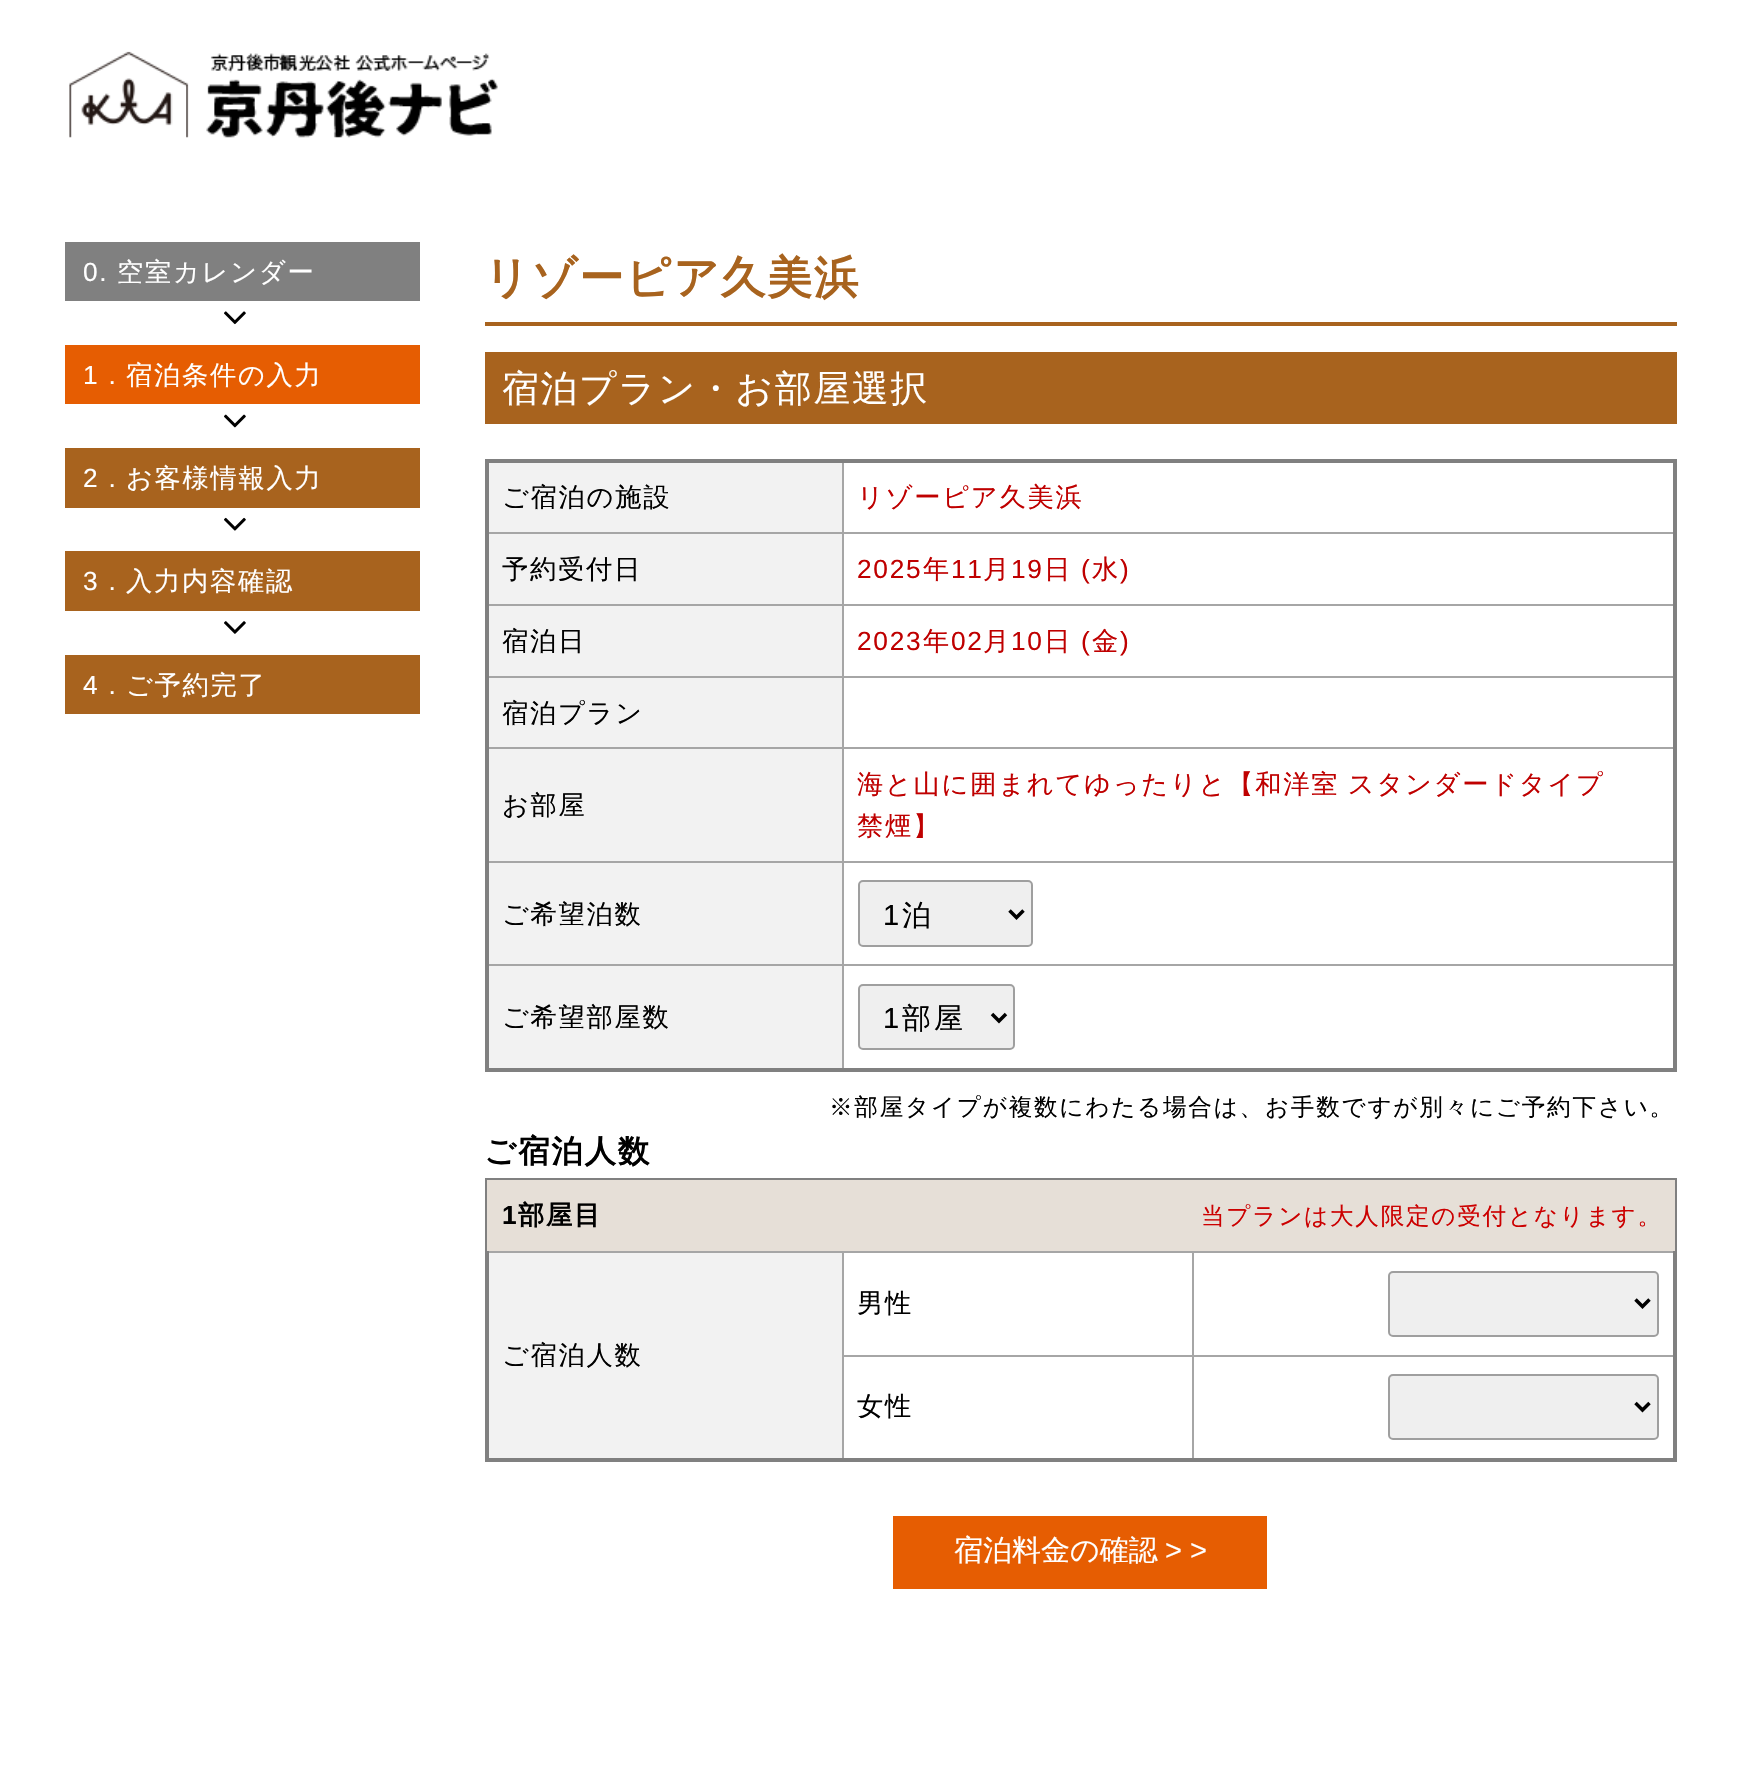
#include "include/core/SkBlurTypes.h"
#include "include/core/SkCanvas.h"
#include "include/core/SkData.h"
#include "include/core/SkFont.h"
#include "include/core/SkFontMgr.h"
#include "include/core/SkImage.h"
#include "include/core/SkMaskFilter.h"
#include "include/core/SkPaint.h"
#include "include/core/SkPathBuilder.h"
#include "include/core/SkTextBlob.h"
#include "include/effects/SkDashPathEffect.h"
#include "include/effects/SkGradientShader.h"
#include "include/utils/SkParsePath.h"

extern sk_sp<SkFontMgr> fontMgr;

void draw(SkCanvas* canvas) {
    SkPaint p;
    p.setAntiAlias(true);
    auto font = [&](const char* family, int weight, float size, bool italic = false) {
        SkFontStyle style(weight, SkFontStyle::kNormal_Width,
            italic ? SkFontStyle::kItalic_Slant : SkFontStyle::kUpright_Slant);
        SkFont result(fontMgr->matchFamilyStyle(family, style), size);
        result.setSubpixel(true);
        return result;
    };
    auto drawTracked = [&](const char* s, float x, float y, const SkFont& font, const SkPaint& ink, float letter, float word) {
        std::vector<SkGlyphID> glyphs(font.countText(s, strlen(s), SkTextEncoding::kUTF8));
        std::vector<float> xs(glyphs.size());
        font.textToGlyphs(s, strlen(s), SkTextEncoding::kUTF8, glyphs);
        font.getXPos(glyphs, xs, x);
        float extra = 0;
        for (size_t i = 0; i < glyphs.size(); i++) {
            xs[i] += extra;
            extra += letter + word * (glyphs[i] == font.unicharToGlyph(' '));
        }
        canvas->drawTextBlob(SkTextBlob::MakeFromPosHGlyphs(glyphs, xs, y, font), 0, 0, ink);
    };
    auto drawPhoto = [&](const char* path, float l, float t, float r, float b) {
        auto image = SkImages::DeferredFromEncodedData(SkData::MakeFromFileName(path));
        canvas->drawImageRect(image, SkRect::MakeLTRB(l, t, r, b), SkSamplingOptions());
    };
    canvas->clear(0xFFFFFFFF);
    drawPhoto("media/1.png", 69, 51, 498, 138);
    p.setColor(0xFF808080);
    canvas->drawRect(SkRect::MakeLTRB(65, 242, 420, 301), p);
    auto font1 = font("Liberation Sans", 400, 26.25f);
    p.setColor(0xFFFFFFFF);
    drawTracked("0.", 83, 281, font1, p, 1.75f, 0);
    auto font2 = font("WenQuanYi Zen Hei", 500, 26.25f);
    drawTracked("空室カレンダー", 117, 281, font2, p, 1.75f, 0);
    drawPhoto("media/2.png", 224, 311, 246, 325);
    p.setColor(0xFFE65D02);
    canvas->drawRect(SkRect::MakeLTRB(65, 345, 420, 404), p);
    p.setColor(0xFFFFFFFF);
    drawTracked("1 .", 83, 384, font1, p, 1.75f, 0);
    drawTracked("宿泊条件の入力", 126, 384, font2, p, 1.75f, 0);
    drawPhoto("media/3.png", 224, 414, 246, 428);
    p.setColor(0xFFA8631E);
    canvas->drawRect(SkRect::MakeLTRB(65, 448, 420, 508), p);
    p.setColor(0xFFFFFFFF);
    drawTracked("2 .", 83, 487, font1, p, 1.75f, 0);
    drawTracked("お客様情報入力", 126, 487, font2, p, 1.75f, 0);
    drawPhoto("media/4.png", 224, 517, 246, 531);
    p.setColor(0xFFA8631E);
    canvas->drawRect(SkRect::MakeLTRB(65, 551, 420, 611), p);
    p.setColor(0xFFFFFFFF);
    drawTracked("3 .", 83, 590, font1, p, 1.75f, 0);
    drawTracked("入力内容確認", 126, 590, font2, p, 1.75f, 0);
    drawPhoto("media/5.png", 224, 621, 246, 634);
    p.setColor(0xFFA8631E);
    canvas->drawRect(SkRect::MakeLTRB(65, 655, 420, 714), p);
    p.setColor(0xFFFFFFFF);
    drawTracked("4 .", 83, 694, font1, p, 1.75f, 0);
    drawTracked("ご予約完了", 126, 694, font2, p, 1.75f, 0);
    p.setColor(0xFFA8631E);
    canvas->drawRect(SkRect::MakeLTRB(485, 322, 1677, 326), p);
    auto font3 = font("WenQuanYi Zen Hei", 700, 44.75f);
    drawTracked("リゾーピア久美浜", 484, 293, font3, p, 1.75f, 0);
    canvas->drawRect(SkRect::MakeLTRB(485, 352, 1677, 424), p);
    auto font4 = font("WenQuanYi Zen Hei", 500, 36.75f);
    p.setColor(0xFFFFFFFF);
    drawTracked("宿泊プラン・お部屋選択", 502, 401, font4, p, 1.75f, 0);
    {
        const struct { float l, t, r, b; SkColor color; } items[] = {
            {842, 964, 844, 1071, 0xFFA6A6A6},
            {842, 964, 1675, 966, 0xFFA6A6A6},
            {842, 861, 844, 966, 0xFFA6A6A6},
            {842, 861, 1675, 863, 0xFFA6A6A6},
            {842, 747, 844, 863, 0xFFA6A6A6},
            {842, 747, 1675, 749, 0xFFA6A6A6},
            {842, 676, 844, 749, 0xFFA6A6A6},
            {842, 676, 1675, 678, 0xFFA6A6A6},
            {842, 604, 844, 677, 0xFFA6A6A6},
            {842, 604, 1675, 606, 0xFFA6A6A6},
            {842, 532, 844, 606, 0xFFA6A6A6},
            {842, 532, 1675, 534, 0xFFA6A6A6},
            {842, 460, 844, 534, 0xFFA6A6A6},
            {485, 459, 1677, 463, 0xFF808080},
            {1673, 459, 1677, 1071, 0xFF808080},
            {485, 1068, 1677, 1072, 0xFF808080},
            {485, 532, 844, 534, 0xFFA6A6A6},
            {485, 604, 844, 606, 0xFFA6A6A6},
            {485, 676, 844, 678, 0xFFA6A6A6},
            {485, 747, 844, 749, 0xFFA6A6A6},
            {485, 861, 844, 863, 0xFFA6A6A6},
            {485, 964, 844, 966, 0xFFA6A6A6},
            {485, 459, 489, 1071, 0xFF808080},
            {489, 463, 842, 532, 0xFFF2F2F2},
        };
        for (auto [l, t, r, b, color] : items) {
            p.setColor(color);
            canvas->drawRect(SkRect::MakeLTRB(l, t, r, b), p);
        }
    }
    p.setColor(0xFF000000);
    drawTracked("ご宿泊の施設", 502, 506, font2, p, 1.75f, 0);
    p.setColor(0xFFBF0000);
    drawTracked("リゾーピア久美浜", 857, 506, font2, p, 1.75f, 0);
    p.setColor(0xFFF2F2F2);
    canvas->drawRect(SkRect::MakeLTRB(489, 534, 842, 604), p);
    p.setColor(0xFF000000);
    drawTracked("予約受付日", 502, 578, font2, p, 1.75f, 0);
    p.setColor(0xFFBF0000);
    drawTracked("2025", 857, 578, font1, p, 1.75f, 0);
    drawTracked("年", 923, 578, font2, p, 1.75f, 0);
    drawTracked("11", 951, 578, font1, p, 1.75f, 0);
    drawTracked("月", 983, 578, font2, p, 1.75f, 0);
    drawTracked("19", 1011, 578, font1, p, 1.75f, 0);
    drawTracked("日", 1044, 578, font2, p, 1.75f, 0);
    drawTracked("(", 1081, 578, font1, p, 1.75f, 0);
    drawTracked("水", 1092, 578, font2, p, 1.75f, 0);
    drawTracked(")", 1120, 578, font1, p, 1.75f, 0);
    p.setColor(0xFFF2F2F2);
    canvas->drawRect(SkRect::MakeLTRB(489, 606, 842, 676), p);
    p.setColor(0xFF000000);
    drawTracked("宿泊日", 502, 650, font2, p, 1.75f, 0);
    p.setColor(0xFFBF0000);
    drawTracked("2023", 857, 650, font1, p, 1.75f, 0);
    drawTracked("年", 923, 650, font2, p, 1.75f, 0);
    drawTracked("02", 951, 650, font1, p, 1.75f, 0);
    drawTracked("月", 983, 650, font2, p, 1.75f, 0);
    drawTracked("10", 1011, 650, font1, p, 1.75f, 0);
    drawTracked("日", 1044, 650, font2, p, 1.75f, 0);
    drawTracked("(", 1081, 650, font1, p, 1.75f, 0);
    drawTracked("金", 1092, 650, font2, p, 1.75f, 0);
    drawTracked(")", 1120, 650, font1, p, 1.75f, 0);
    p.setColor(0xFFF2F2F2);
    canvas->drawRect(SkRect::MakeLTRB(489, 678, 842, 747), p);
    p.setColor(0xFF000000);
    drawTracked("宿泊プラン", 502, 722, font2, p, 1.75f, 0);
    p.setColor(0xFFF2F2F2);
    canvas->drawRect(SkRect::MakeLTRB(489, 749, 842, 861), p);
    p.setColor(0xFF000000);
    drawTracked("お部屋", 502, 814, font2, p, 1.75f, 0);
    p.setColor(0xFFBF0000);
    drawTracked("海と山に囲まれてゆったりと【和洋室 スタンダードタイプ", 857, 793, font2, p, 1.75f, -1);
    drawTracked("禁煙】", 857, 835, font2, p, 1.75f, 0);
    p.setColor(0xFFF2F2F2);
    canvas->drawRect(SkRect::MakeLTRB(489, 863, 842, 964), p);
    p.setColor(0xFF000000);
    drawTracked("ご希望泊数", 502, 923, font2, p, 1.75f, 0);
    p.setColor(0xFFEFEFEF);
    canvas->drawRoundRect(SkRect::MakeLTRB(859, 881, 1032, 946), 4, 4, p);
    p.setStyle(SkPaint::kStroke_Style);
    p.setStrokeWidth(2);
    p.setColor(0xFF9F9F9F);
    canvas->drawRoundRect(SkRect::MakeLTRB(859, 881, 1032, 946), 4, 4, p);
    p.setStrokeWidth(3.5f);
    p.setColor(0xFF000000);
    canvas->drawPath(SkPathBuilder().moveTo(1009.5f, 910.5f).lineTo(1016.5f, 917.5f).lineTo(1023.5f, 910.5f).detach(), p);
    auto font5 = font("Liberation Sans", 400, 29);
    p.setStyle(SkPaint::kFill_Style);
    drawTracked("1", 883, 925, font5, p, 3, 0);
    auto font6 = font("WenQuanYi Zen Hei", 500, 29);
    drawTracked("泊", 902, 925, font6, p, 3, 0);
    p.setColor(0xFFF2F2F2);
    canvas->drawRect(SkRect::MakeLTRB(489, 966, 842, 1068), p);
    p.setColor(0xFF000000);
    drawTracked("ご希望部屋数", 502, 1026, font2, p, 1.75f, 0);
    p.setColor(0xFFEFEFEF);
    canvas->drawRoundRect(SkRect::MakeLTRB(859, 985, 1014, 1049), 4, 4, p);
    p.setStyle(SkPaint::kStroke_Style);
    p.setStrokeWidth(2);
    p.setColor(0xFF9F9F9F);
    canvas->drawRoundRect(SkRect::MakeLTRB(859, 985, 1014, 1049), 4, 4, p);
    p.setStrokeWidth(3.5f);
    p.setColor(0xFF000000);
    canvas->drawPath(SkPathBuilder().moveTo(992, 1014).lineTo(999, 1021).lineTo(1006, 1014).detach(), p);
    p.setStyle(SkPaint::kFill_Style);
    drawTracked("1", 883, 1028, font5, p, 3, 0);
    drawTracked("部屋", 902, 1028, font6, p, 3, 0);
    auto font7 = font("WenQuanYi Zen Hei", 500, 23.6f);
    drawTracked("※部屋タイプが複数にわたる場合は、お手数ですが別々にご予約下さい。", 829, 1115, font7, p, 1.75f, 0);
    auto font8 = font("WenQuanYi Zen Hei", 700, 31.5f);
    drawTracked("ご宿泊人数", 484, 1162, font8, p, 1.75f, 0);
    {
        const struct { float l, t, r, b; SkColor color; } items[] = {
            {485, 1178, 1677, 1180, 0xFF808080},
            {1192, 1355, 1194, 1458, 0xFFA6A6A6},
            {1192, 1355, 1673, 1357, 0xFFA6A6A6},
            {1192, 1251, 1194, 1356, 0xFFA6A6A6},
            {842, 1355, 1194, 1357, 0xFFA6A6A6},
            {842, 1251, 844, 1460, 0xFFA6A6A6},
            {485, 1251, 1675, 1253, 0xFFA6A6A6},
            {1673, 1178, 1677, 1461, 0xFF808080},
            {485, 1458, 1677, 1462, 0xFF808080},
            {485, 1178, 489, 1461, 0xFF808080},
            {487, 1180, 1675, 1251, 0xFFE6DFD7},
        };
        for (auto [l, t, r, b, color] : items) {
            p.setColor(color);
            canvas->drawRect(SkRect::MakeLTRB(l, t, r, b), p);
        }
    }
    auto font9 = font("Liberation Sans", 700, 26.25f);
    p.setColor(0xFF000000);
    drawTracked("1", 502, 1224, font9, p, 1.75f, 0);
    auto font10 = font("WenQuanYi Zen Hei", 700, 26.25f);
    drawTracked("部屋目", 518, 1224, font10, p, 1.75f, 0);
    p.setColor(0xFFCC0000);
    drawTracked("当プランは大人限定の受付となります。", 1201, 1224, font7, p, 1.75f, 0);
    p.setColor(0xFFF2F2F2);
    canvas->drawRect(SkRect::MakeLTRB(489, 1253, 842, 1458), p);
    p.setColor(0xFF000000);
    drawTracked("ご宿泊人数", 502, 1364, font2, p, 1.75f, 0);
    drawTracked("男性", 857, 1312, font2, p, 1.75f, 0);
    p.setColor(0xFFEFEFEF);
    canvas->drawRoundRect(SkRect::MakeLTRB(1389, 1272, 1658, 1336), 4, 4, p);
    p.setStyle(SkPaint::kStroke_Style);
    p.setStrokeWidth(2);
    p.setColor(0xFF9F9F9F);
    canvas->drawRoundRect(SkRect::MakeLTRB(1389, 1272, 1658, 1336), 4, 4, p);
    p.setStrokeWidth(3.5f);
    p.setColor(0xFF000000);
    canvas->drawPath(SkPathBuilder().moveTo(1635.5f, 1299.5f).lineTo(1642.5f, 1306.5f).lineTo(1649.5f, 1299.5f).detach(), p);
    p.setStyle(SkPaint::kFill_Style);
    drawTracked("女性", 857, 1415, font2, p, 1.75f, 0);
    p.setColor(0xFFEFEFEF);
    canvas->drawRoundRect(SkRect::MakeLTRB(1389, 1375, 1658, 1439), 4, 4, p);
    p.setStyle(SkPaint::kStroke_Style);
    p.setStrokeWidth(2);
    p.setColor(0xFF9F9F9F);
    canvas->drawRoundRect(SkRect::MakeLTRB(1389, 1375, 1658, 1439), 4, 4, p);
    p.setStrokeWidth(3.5f);
    p.setColor(0xFF000000);
    canvas->drawPath(SkPathBuilder().moveTo(1635.5f, 1403).lineTo(1642.5f, 1410).lineTo(1649.5f, 1403).detach(), p);
    p.setStyle(SkPaint::kFill_Style);
    p.setColor(0xFFE65D02);
    canvas->drawRect(SkRect::MakeLTRB(893, 1516, 1267, 1589), p);
    p.setColor(0xFFFFFFFF);
    canvas->drawString("宿泊料金の確認", 954, 1560, font6, p);
    canvas->drawString("> >", 1165, 1560, font5, p);
}
